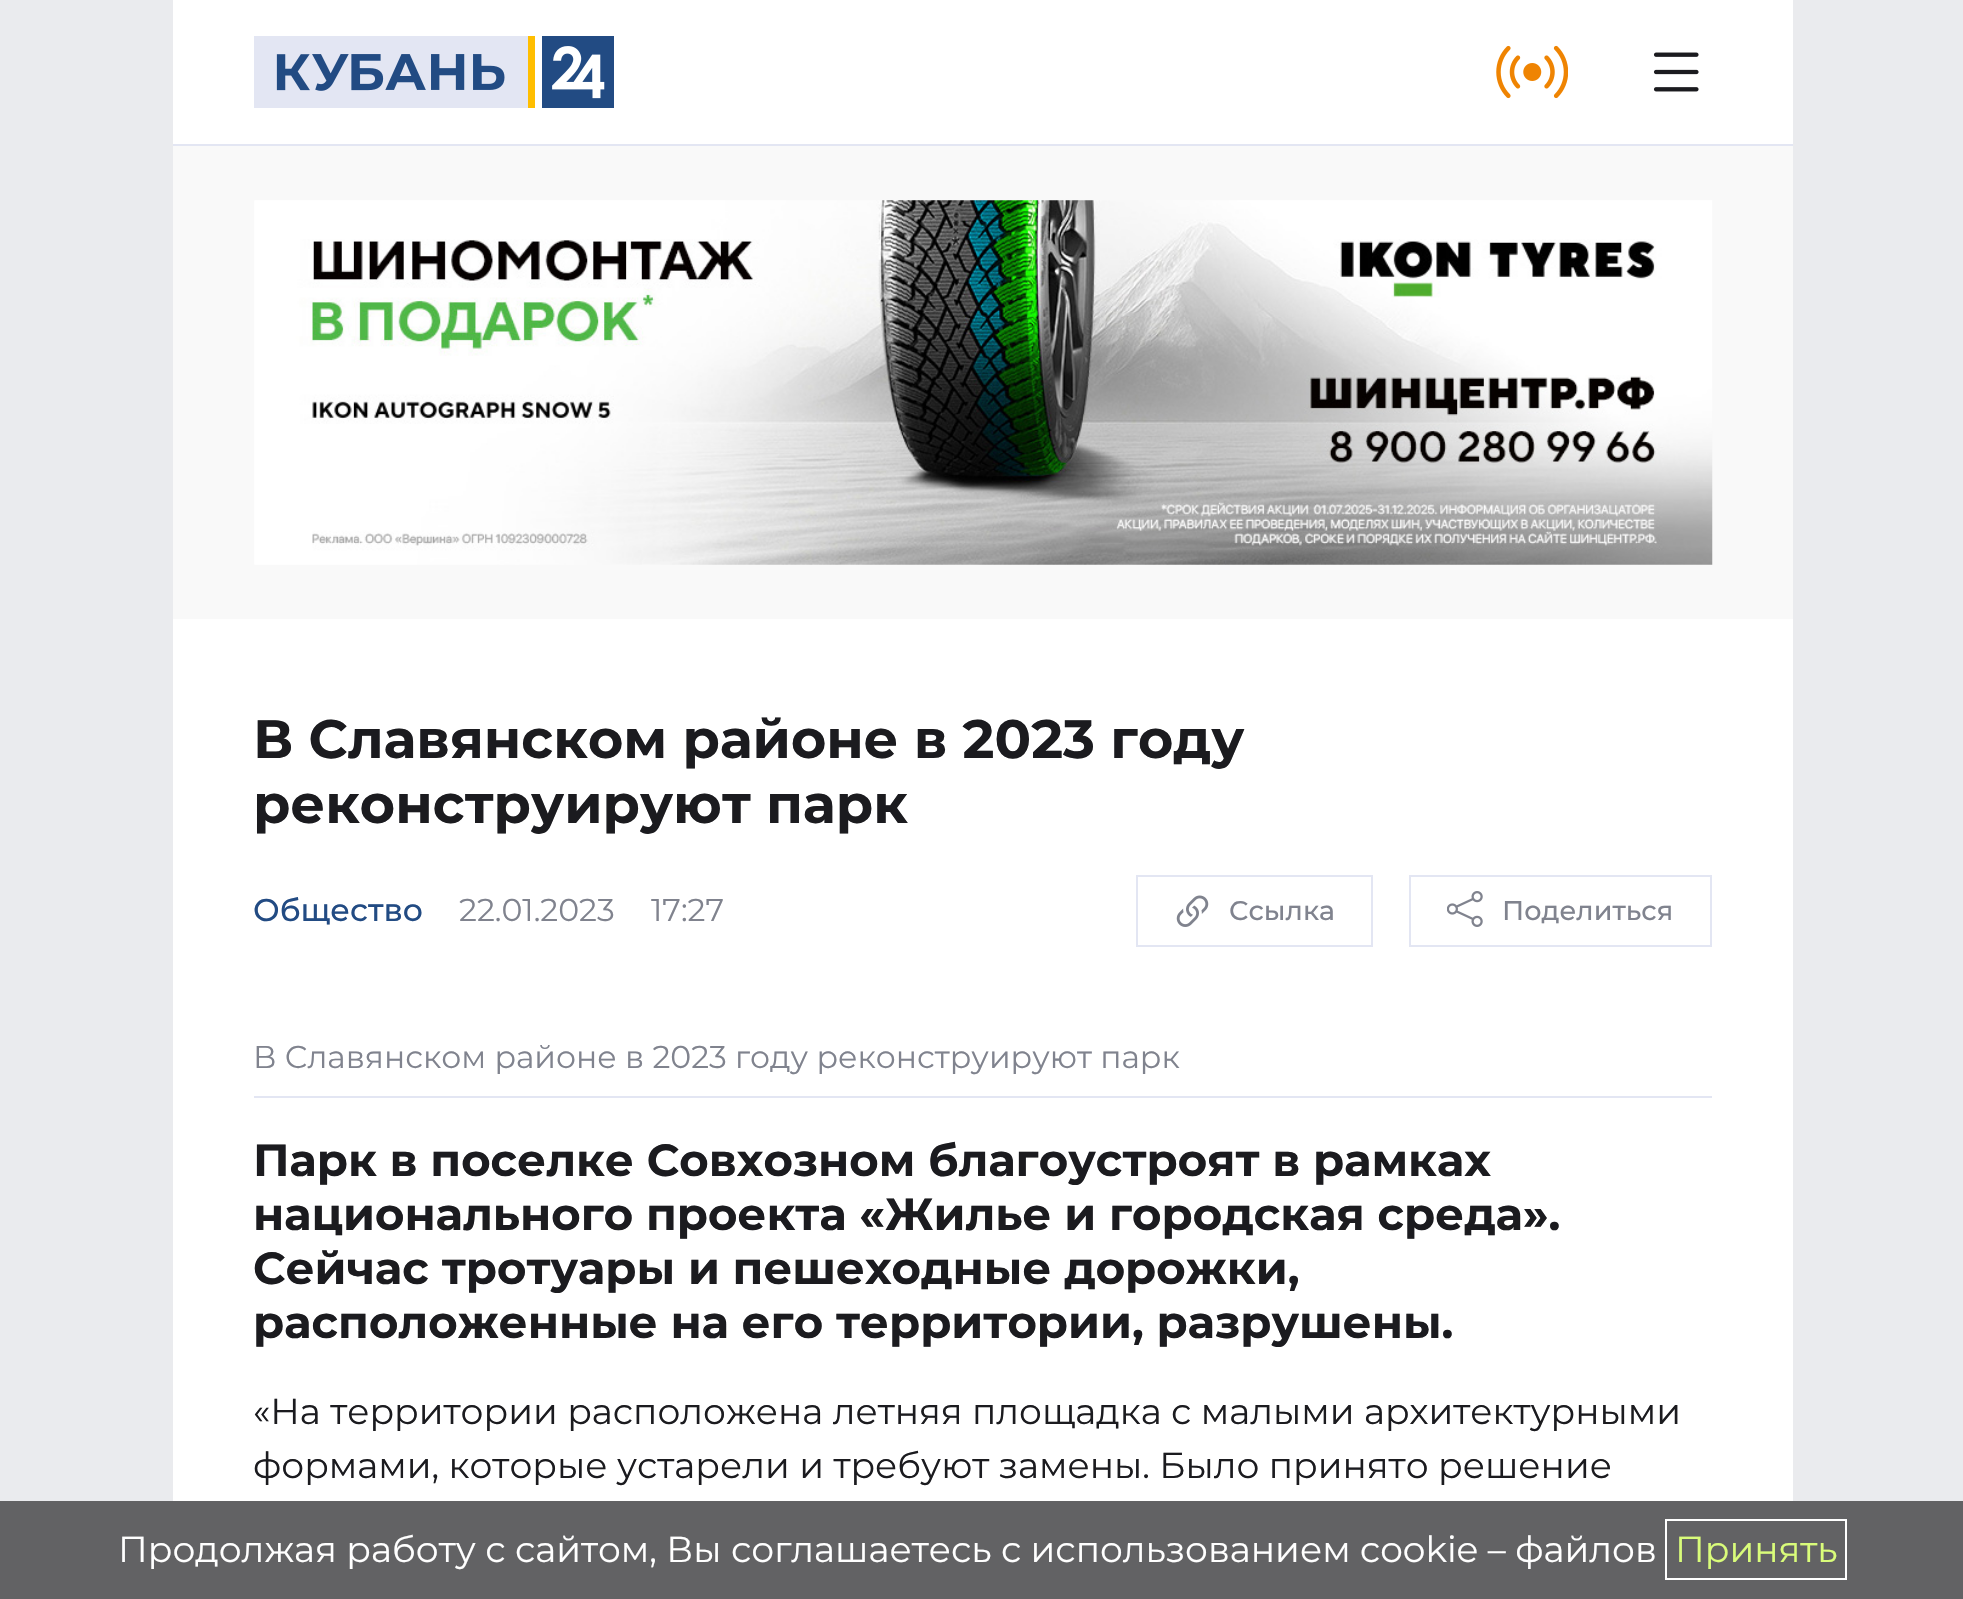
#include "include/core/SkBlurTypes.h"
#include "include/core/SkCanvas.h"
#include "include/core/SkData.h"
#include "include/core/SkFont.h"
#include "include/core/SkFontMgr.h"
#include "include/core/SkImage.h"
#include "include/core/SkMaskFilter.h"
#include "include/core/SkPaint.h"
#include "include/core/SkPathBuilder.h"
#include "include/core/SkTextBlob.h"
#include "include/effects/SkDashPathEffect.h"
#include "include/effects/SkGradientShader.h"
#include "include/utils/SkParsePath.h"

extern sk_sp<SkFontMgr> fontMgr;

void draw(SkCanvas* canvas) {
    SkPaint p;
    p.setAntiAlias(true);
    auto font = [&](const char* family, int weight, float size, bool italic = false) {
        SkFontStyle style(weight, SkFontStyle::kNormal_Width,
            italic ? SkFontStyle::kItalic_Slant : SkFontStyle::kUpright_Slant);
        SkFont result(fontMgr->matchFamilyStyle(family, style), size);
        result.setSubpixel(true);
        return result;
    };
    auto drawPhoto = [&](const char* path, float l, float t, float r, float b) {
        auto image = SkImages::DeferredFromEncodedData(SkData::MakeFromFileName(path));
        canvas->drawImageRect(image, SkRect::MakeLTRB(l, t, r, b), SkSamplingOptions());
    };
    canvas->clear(0xFFEAEBEE);
    p.setColor(0xFFFFFFFF);
    canvas->drawRect(SkRect::MakeLTRB(173, 0, 1793, 144), p);
    p.setColor(0xFFE3E6F3);
    canvas->drawRect(SkRect::MakeLTRB(173, 144, 1793, 146), p);
    drawPhoto("media/1.png", 254, 36, 614, 108);
    drawPhoto("media/2.png", 1496, 45, 1568, 99);
    drawPhoto("media/3.png", 1653, 52, 1699, 92);
    p.setColor(0xFFFFFFFF);
    canvas->drawRect(SkRect::MakeLTRB(173, 619, 1793, 1501), p);
    p.setColor(0xFFF9F9F9);
    canvas->drawRect(SkRect::MakeLTRB(173, 146, 1793, 619), p);
    drawPhoto("media/4.png", 254, 200, 1713, 565);
    auto font1 = font("Montserrat", 700, 54);
    p.setColor(0xFF1B1B1F);
    canvas->drawString("В Славянском районе в 2023 году", 253, 758, font1, p);
    canvas->drawString("реконструируют парк", 253, 823, font1, p);
    auto font2 = font("Montserrat", 500, 31.5f);
    p.setColor(0xFF224B83);
    canvas->drawString("Общество", 253, 921, font2, p);
    auto font3 = font("Montserrat", 400, 31.5f);
    p.setColor(0xFF80838E);
    canvas->drawString("22.01.2023", 459, 921, font3, p);
    canvas->drawString("17:27", 651, 921, font3, p);
    p.setStyle(SkPaint::kStroke_Style);
    p.setStrokeWidth(2);
    p.setColor(0xFFE3E6F3);
    canvas->drawRect(SkRect::MakeLTRB(1137, 876, 1372, 946), p);
    drawPhoto("media/5.png", 1176, 895, 1209, 927);
    auto font4 = font("Montserrat", 500, 27);
    p.setStyle(SkPaint::kFill_Style);
    p.setColor(0xFF80838E);
    canvas->drawString("Ссылка", 1229, 920, font4, p);
    p.setStyle(SkPaint::kStroke_Style);
    p.setColor(0xFFE3E6F3);
    canvas->drawRect(SkRect::MakeLTRB(1410, 876, 1711, 946), p);
    drawPhoto("media/6.png", 1447, 891, 1483, 927);
    p.setStyle(SkPaint::kFill_Style);
    p.setColor(0xFF80838E);
    canvas->drawString("Поделиться", 1502, 920, font4, p);
    p.setColor(0xFFE3E6F3);
    canvas->drawRect(SkRect::MakeLTRB(254, 1096, 1712, 1098), p);
    p.setColor(0xFF80838E);
    canvas->drawString("В Славянском районе в 2023 году реконструируют парк", 253, 1068, font3, p);
    auto font5 = font("Montserrat", 700, 45);
    p.setColor(0xFF1B1B1F);
    {
        const struct { const char* s; float x, y; } items[] = {
            {"Парк в поселке Совхозном благоустроят в рамках", 253, 1176},
            {"национального проекта «Жилье и городская среда».", 253, 1230},
            {"Сейчас тротуары и пешеходные дорожки,", 253, 1284},
            {"расположенные на его территории, разрушены.", 253, 1338},
        };
        for (auto [s, x, y] : items) {
            canvas->drawString(s, x, y, font5, p);
        }
    }
    auto font6 = font("Montserrat", 400, 36);
    canvas->drawString("«На территории расположена летняя площадка с малыми архитектурными", 253, 1424, font6, p);
    canvas->drawString("формами, которые устарели и требуют замены. Было принято решение", 253, 1478, font6, p);
    p.setColor(0xFF626264);
    canvas->drawRect(SkRect::MakeLTRB(0, 1501, 1963, 1599), p);
    p.setColor(0xFFFFFFFF);
    canvas->drawString("Продолжая работу с сайтом, Вы соглашаетесь с использованием cookie – файлов", 118, 1562, font6, p);
    p.setStyle(SkPaint::kStroke_Style);
    canvas->drawRect(SkRect::MakeLTRB(1666, 1520, 1846, 1579), p);
    p.setStyle(SkPaint::kFill_Style);
    p.setColor(0xFFD9FC7A);
    canvas->drawString("Принять", 1675, 1562, font6, p);
}
